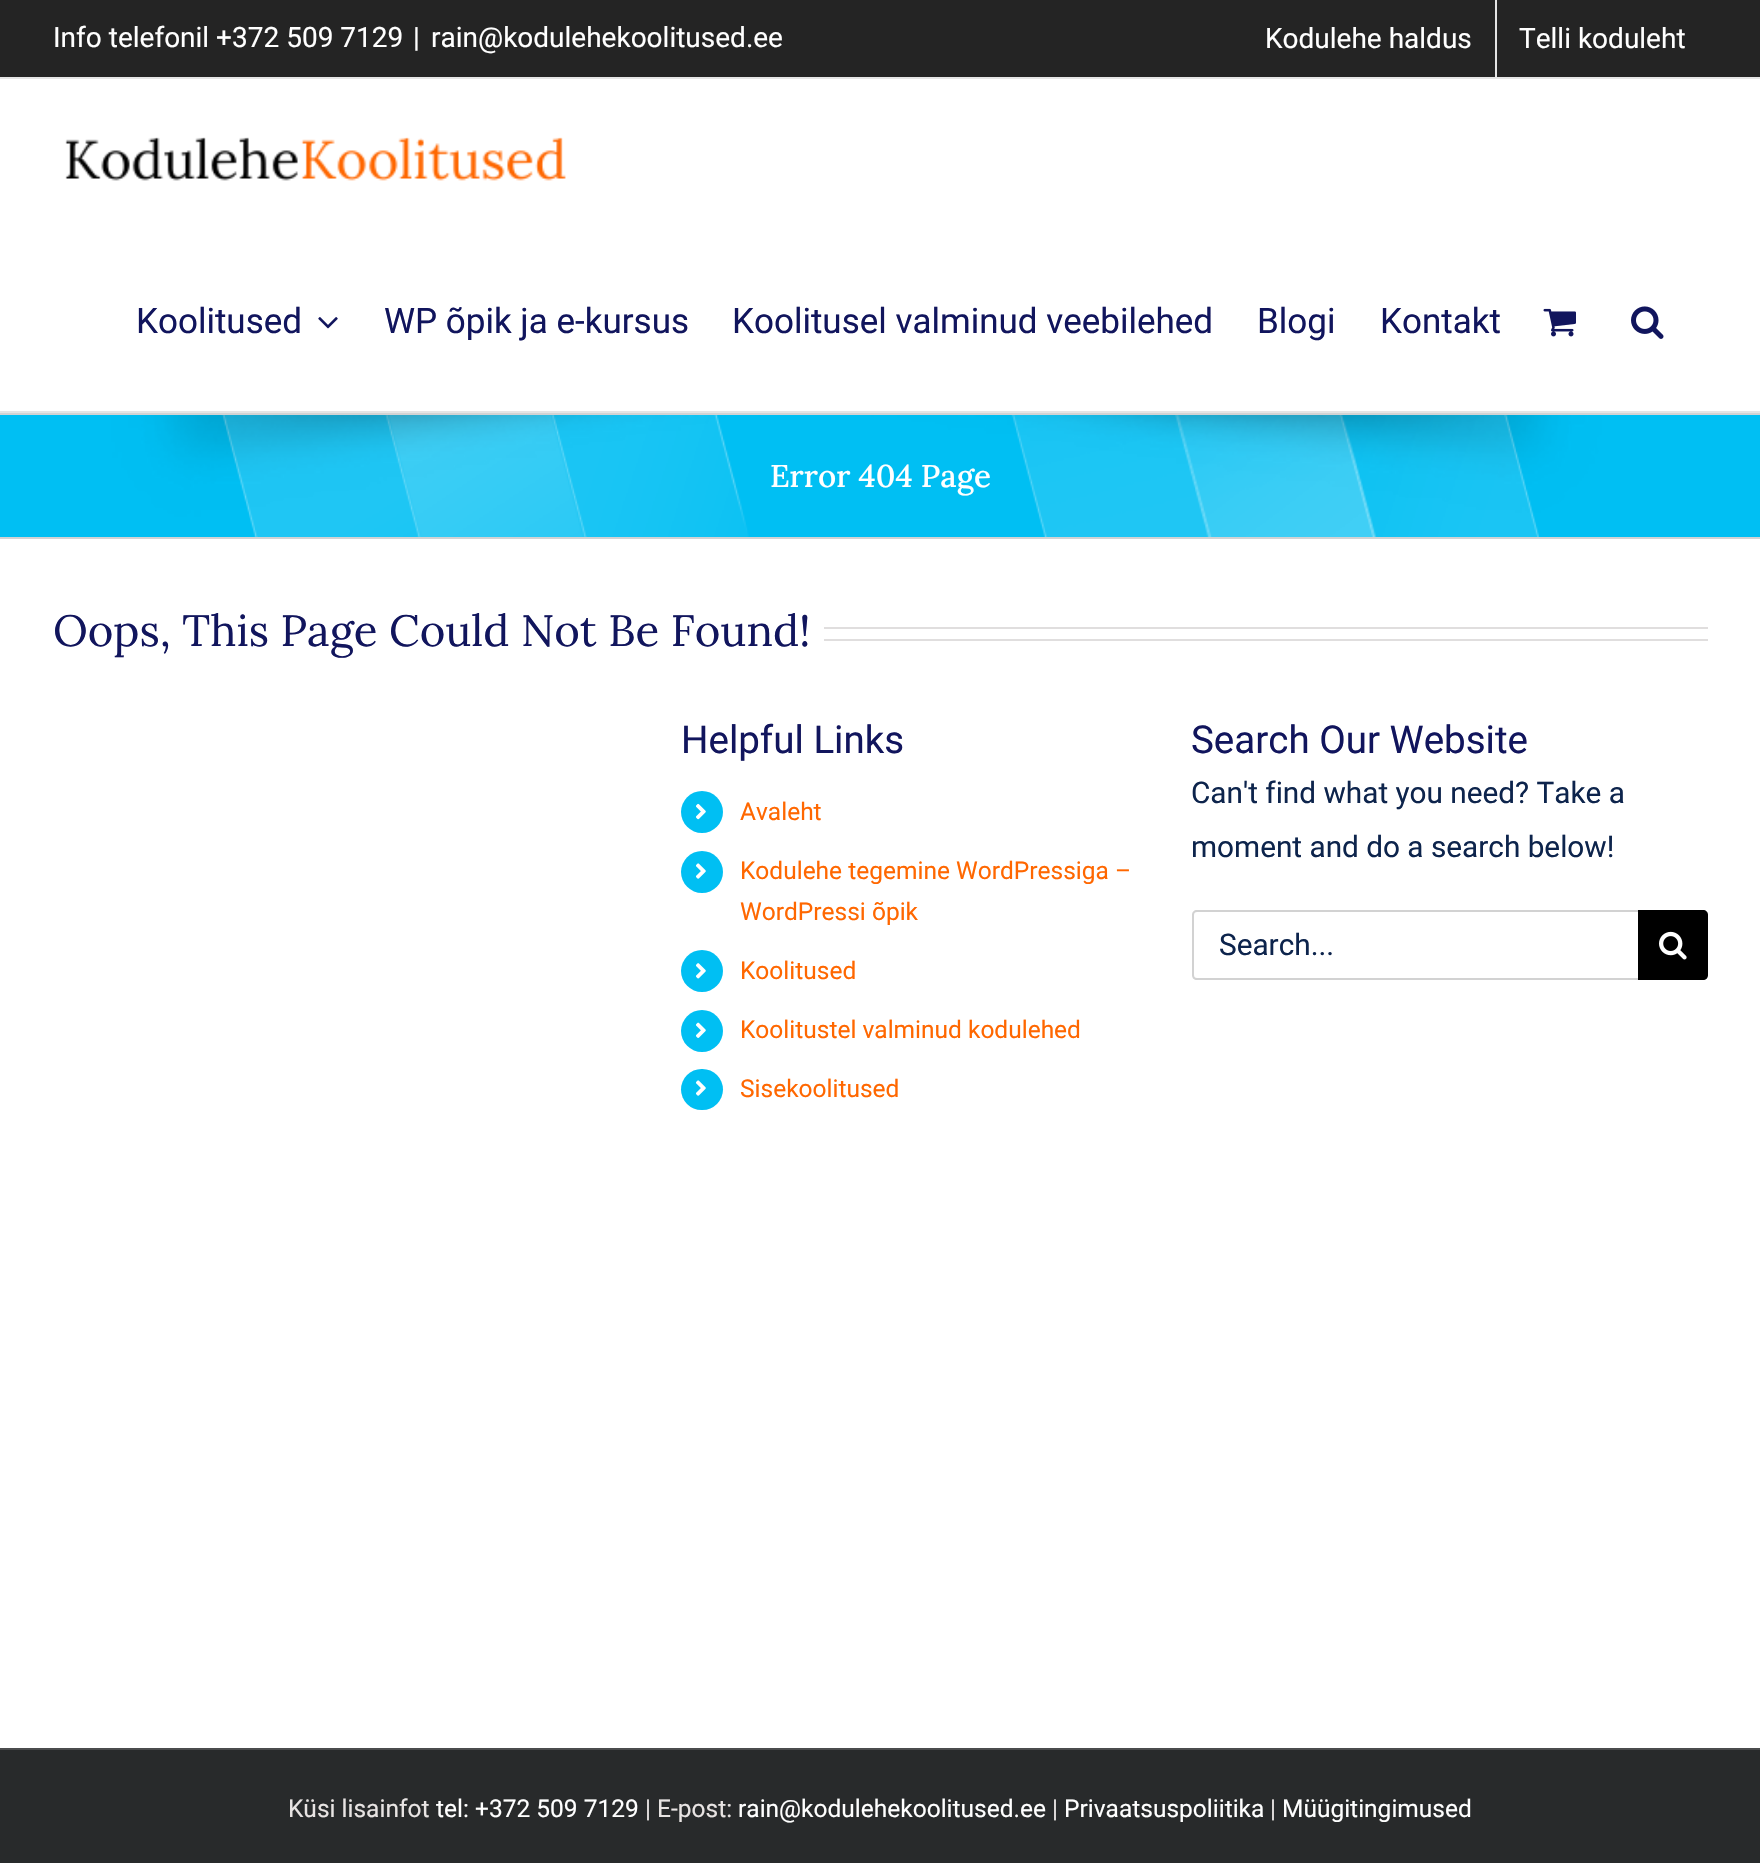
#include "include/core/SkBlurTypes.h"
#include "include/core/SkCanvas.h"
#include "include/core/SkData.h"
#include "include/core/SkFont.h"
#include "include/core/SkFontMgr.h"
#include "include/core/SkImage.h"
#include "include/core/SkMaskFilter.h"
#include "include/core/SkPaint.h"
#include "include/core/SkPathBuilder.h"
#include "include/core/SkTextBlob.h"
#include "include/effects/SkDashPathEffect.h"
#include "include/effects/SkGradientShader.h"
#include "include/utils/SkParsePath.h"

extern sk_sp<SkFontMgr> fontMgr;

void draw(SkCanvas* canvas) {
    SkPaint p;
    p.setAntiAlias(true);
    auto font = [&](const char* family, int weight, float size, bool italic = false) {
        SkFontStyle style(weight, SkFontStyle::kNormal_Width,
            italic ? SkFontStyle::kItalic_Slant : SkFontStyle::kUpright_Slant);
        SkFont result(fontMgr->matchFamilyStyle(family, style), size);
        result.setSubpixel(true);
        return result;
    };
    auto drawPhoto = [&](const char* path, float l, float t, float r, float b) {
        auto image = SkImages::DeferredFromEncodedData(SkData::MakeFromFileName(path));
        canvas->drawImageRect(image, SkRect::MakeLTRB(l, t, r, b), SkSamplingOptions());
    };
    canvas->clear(0xFFFFFFFF);
    p.setColor(0xFF242424);
    canvas->drawRect(SkRect::MakeLTRB(0, 0, 1760, 77), p);
    p.setColor(0xFFE5E5E5);
    canvas->drawRect(SkRect::MakeLTRB(0, 77, 1760, 79), p);
    auto font1 = font("Roboto", 400, 28);
    p.setColor(0xFFFFFFFF);
    {
        const struct { const char* s; float x, y; } items[] = {
            {"Info telefonil +372 509 7129", 53, 47},
            {"|", 413, 47},
            {"rain@kodulehekoolitused.ee", 431, 47},
            {"Kodulehe haldus", 1265, 48},
        };
        for (auto [s, x, y] : items) {
            canvas->drawString(s, x, y, font1, p);
        }
    }
    p.setColor(0xFFE5E5E5);
    canvas->drawRect(SkRect::MakeLTRB(1495, 0, 1497, 77), p);
    p.setColor(0xFFFFFFFF);
    canvas->drawString("Telli koduleht", 1519, 48, font1, p);
    p.setColor(0xFFE5E5E5);
    canvas->drawRect(SkRect::MakeLTRB(0, 411, 1760, 413), p);
    drawPhoto("media/1.png", 65, 137, 566, 181);
    auto font2 = font("Roboto", 400, 35);
    p.setColor(0xFF11155D);
    canvas->drawString("Koolitused", 136, 333, font2, p);
    drawPhoto("media/2.png", 318, 317, 338, 329);
    {
        const struct { const char* s; float x, y; } items[] = {
            {"WP õpik ja e-kursus", 384, 333},
            {"Koolitusel valminud veebilehed", 732, 333},
            {"Blogi", 1257, 333},
            {"Kontakt", 1380, 333},
        };
        for (auto [s, x, y] : items) {
            canvas->drawString(s, x, y, font2, p);
        }
    }
    drawPhoto("media/3.png", 1543, 308, 1576, 337);
    drawPhoto("media/4.png", 1631, 306, 1664, 339);
    drawPhoto("media/5.png", 0, 415, 1760, 537);
    p.setColor(0xFFD2D3D4);
    canvas->drawRect(SkRect::MakeLTRB(0, 413, 1760, 415), p);
    canvas->drawRect(SkRect::MakeLTRB(0, 537, 1760, 539), p);
    auto font3 = font("Lora", 500, 31.5f);
    p.setColor(0xFFFFFFFF);
    canvas->drawString("Error 404 Page", 770, 487, font3, p);
    auto font4 = font("Lora", 400, 43.75f);
    p.setColor(0xFF11155D);
    canvas->drawString("Oops, This Page Could Not Be Found!", 53, 646, font4, p);
    p.setColor(0xFFE0DEDE);
    canvas->drawRect(SkRect::MakeLTRB(824, 627, 1708, 629), p);
    canvas->drawRect(SkRect::MakeLTRB(824, 639, 1708, 641), p);
    auto font5 = font("Roboto", 400, 38.5f);
    p.setColor(0xFF11155D);
    canvas->drawString("Helpful Links", 681, 753, font5, p);
    p.setColor(0xFF00BFF3);
    canvas->drawCircle(702, 812, 21, p);
    drawPhoto("media/6.png", 696, 803, 706, 820);
    auto font6 = font("Roboto", 400, 24.5f);
    p.setColor(0xFFFF6700);
    canvas->drawString("Avaleht", 740, 820, font6, p);
    p.setColor(0xFF00BFF3);
    canvas->drawCircle(702, 872, 21, p);
    drawPhoto("media/7.png", 696, 863, 706, 879);
    p.setColor(0xFFFF6700);
    canvas->drawString("Kodulehe tegemine WordPressiga –", 740, 879, font6, p);
    canvas->drawString("WordPressi õpik", 740, 920, font6, p);
    p.setColor(0xFF00BFF3);
    canvas->drawCircle(702, 971, 21, p);
    drawPhoto("media/8.png", 696, 963, 706, 979);
    p.setColor(0xFFFF6700);
    canvas->drawString("Koolitused", 740, 979, font6, p);
    p.setColor(0xFF00BFF3);
    canvas->drawCircle(702, 1031, 21, p);
    drawPhoto("media/9.png", 696, 1022, 706, 1038);
    p.setColor(0xFFFF6700);
    canvas->drawString("Koolitustel valminud kodulehed", 740, 1038, font6, p);
    p.setColor(0xFF00BFF3);
    canvas->drawRoundRect(SkRect::MakeLTRB(681, 1069, 723, 1110), 20.5f, 20.5f, p);
    drawPhoto("media/7.png", 696, 1080, 706, 1096);
    p.setColor(0xFFFF6700);
    canvas->drawString("Sisekoolitused", 740, 1097, font6, p);
    p.setColor(0xFF11155D);
    canvas->drawString("Search Our Website", 1191, 753, font5, p);
    auto font7 = font("Roboto", 400, 29.75f);
    p.setColor(0xFF0D244C);
    canvas->drawString("Can't find what you need? Take a", 1191, 803, font7, p);
    canvas->drawString("moment and do a search below!", 1191, 857, font7, p);
    p.setColor(0xFFD2D2D2);
    canvas->drawPath(SkPathBuilder().moveTo(1197, 910).cubicTo(1194, 910, 1192, 912, 1192, 915).lineTo(1192, 975).cubicTo(1192, 978, 1194, 980, 1197, 980).lineTo(1638, 980).lineTo(1638, 978).lineTo(1197, 978).cubicTo(1195, 978, 1194, 977, 1194, 975).lineTo(1194, 915).cubicTo(1194, 913, 1195, 912, 1197, 912).lineTo(1638, 912).lineTo(1638, 910).close().detach(), p);
    p.setColor(0xFF0D244C);
    canvas->drawString("Search...", 1219, 955, font7, p);
    p.setColor(0xFF000000);
    canvas->drawPath(SkPathBuilder().moveTo(1638, 910).lineTo(1703, 910).cubicTo(1706, 910, 1708, 912, 1708, 915).lineTo(1708, 975).cubicTo(1708, 978, 1706, 980, 1703, 980).lineTo(1638, 980).close().detach(), p);
    drawPhoto("media/10.png", 1659, 931, 1687, 960);
    p.setColor(0xFF282A2B);
    canvas->drawRect(SkRect::MakeLTRB(0, 1750, 1760, 1863), p);
    p.setColor(0xFF4B4C4D);
    canvas->drawRect(SkRect::MakeLTRB(0, 1748, 1760, 1750), p);
    p.setColor(0xFFE8E4E3);
    canvas->drawString("Küsi lisainfot", 288, 1817, font6, p);
    p.setColor(0xFFFFFFFF);
    canvas->drawString("tel: +372 509 7129", 436, 1817, font6, p);
    p.setColor(0xFFE8E4E3);
    canvas->drawString("| E-post:", 645, 1817, font6, p);
    p.setColor(0xFFFFFFFF);
    canvas->drawString("rain@kodulehekoolitused.ee", 738, 1817, font6, p);
    p.setColor(0xFFE8E4E3);
    canvas->drawString("|", 1052, 1817, font6, p);
    p.setColor(0xFFFFFFFF);
    canvas->drawString("Privaatsuspoliitika", 1064, 1817, font6, p);
    p.setColor(0xFFE8E4E3);
    canvas->drawString("|", 1270, 1817, font6, p);
    p.setColor(0xFFFFFFFF);
    canvas->drawString("Müügitingimused", 1282, 1817, font6, p);
}
